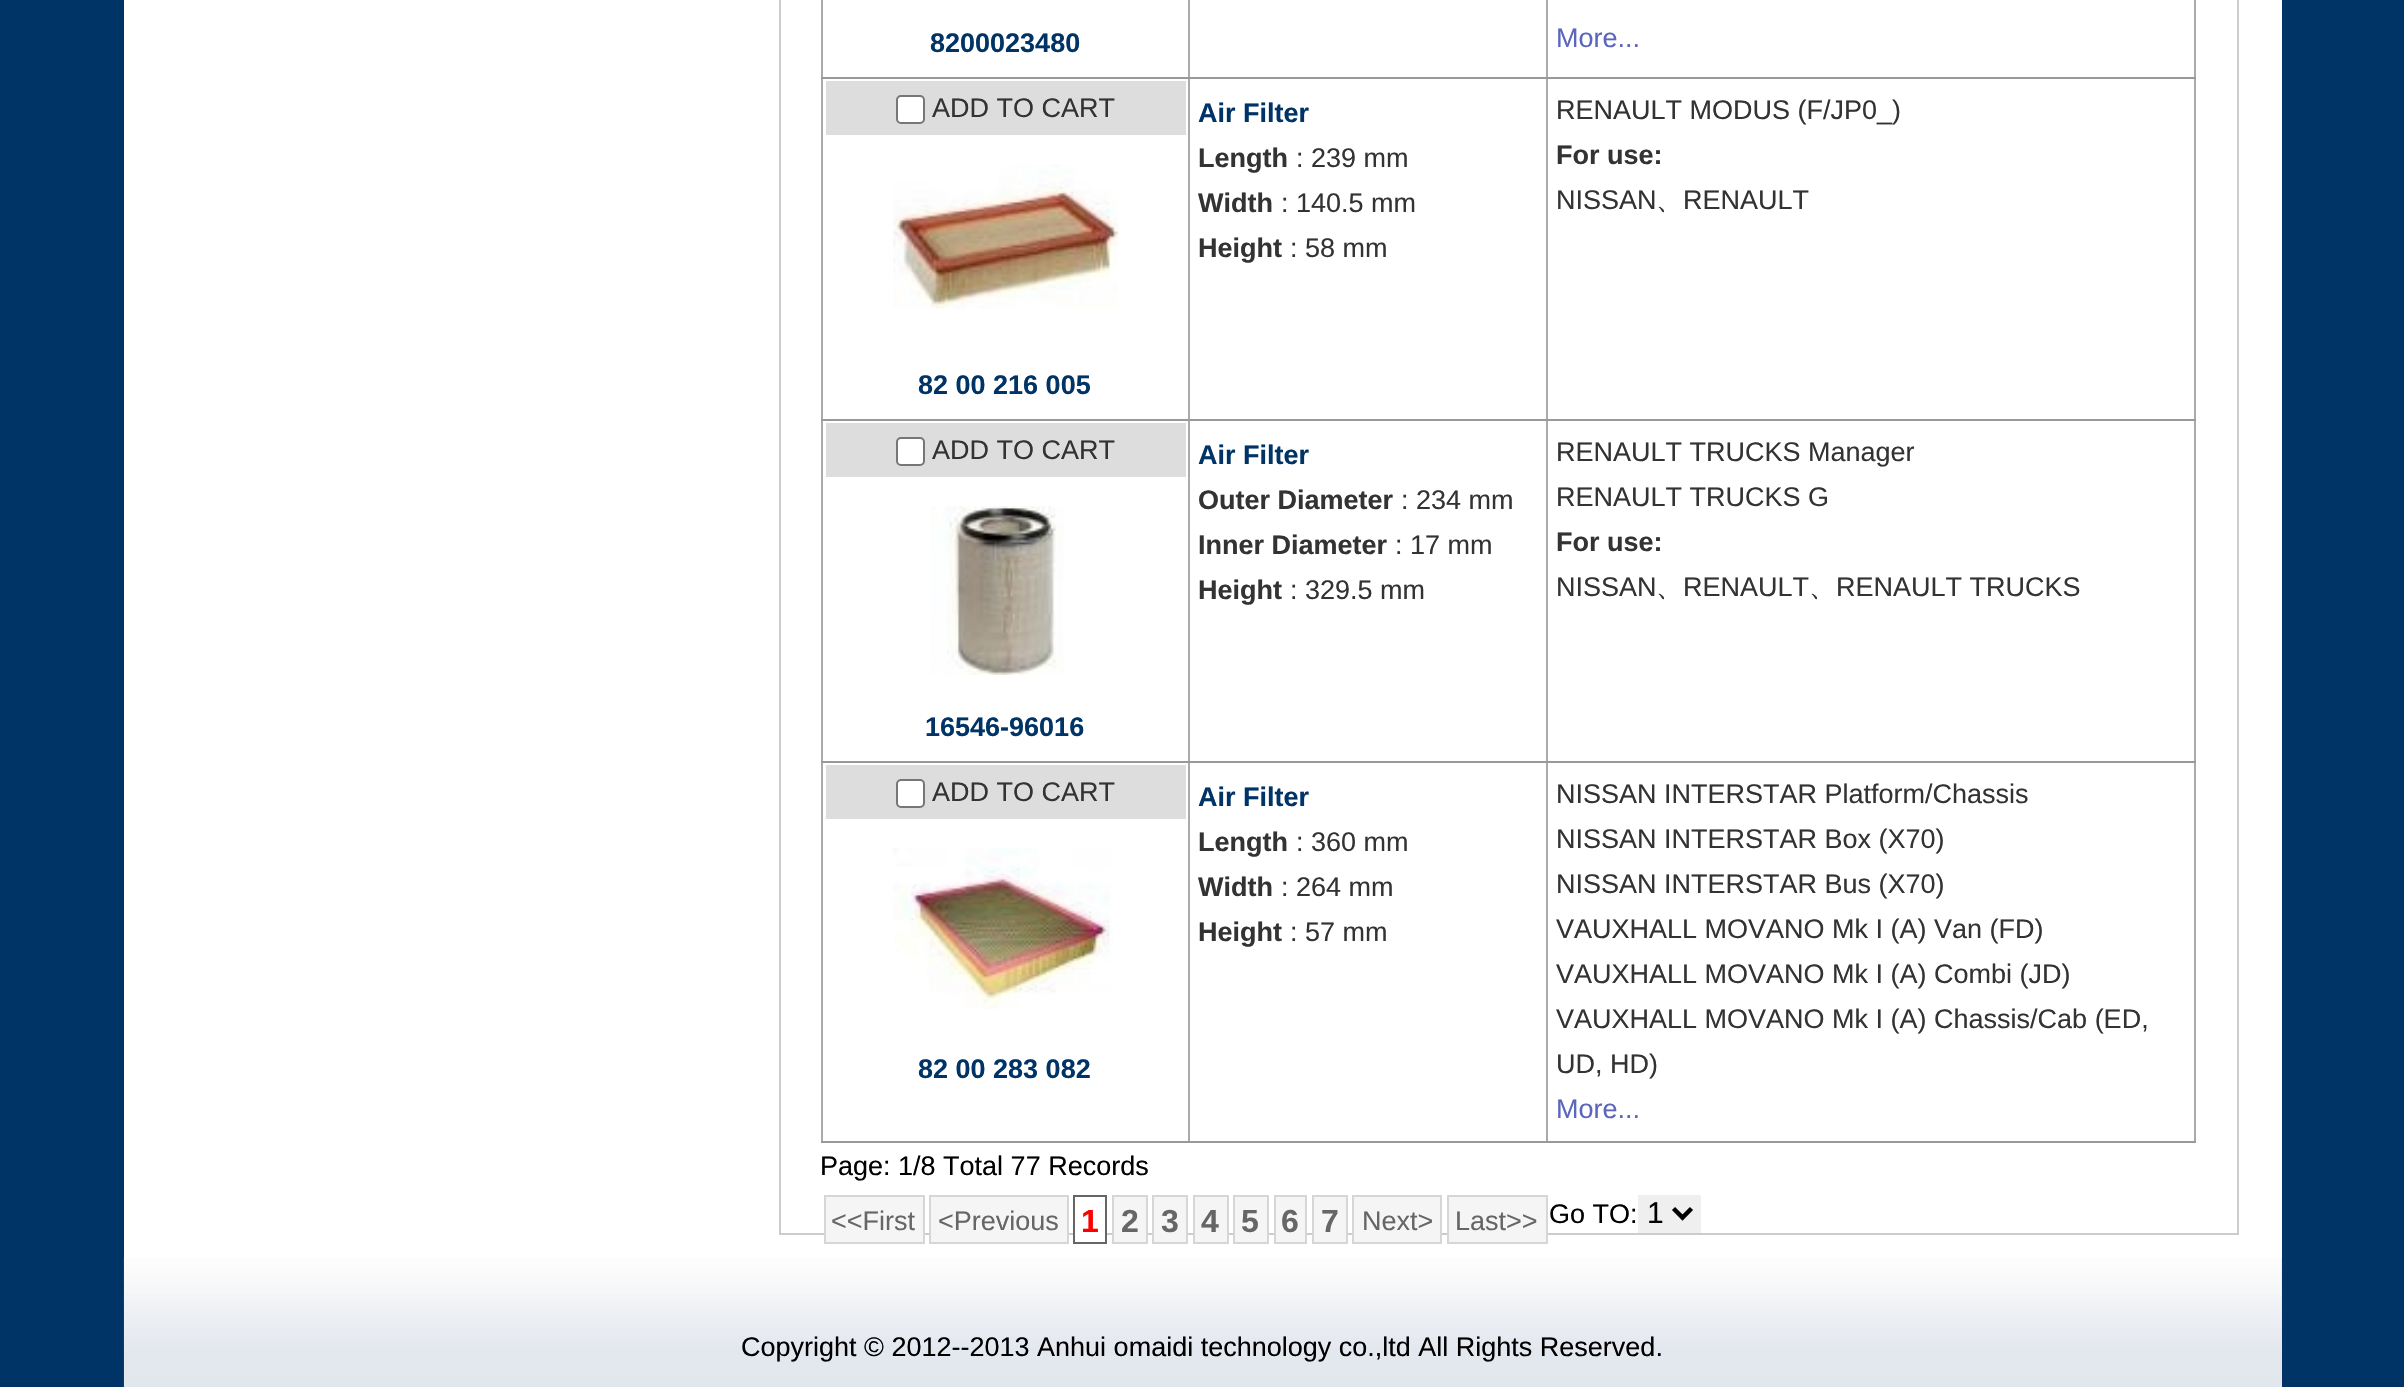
#include "include/core/SkBlurTypes.h"
#include "include/core/SkCanvas.h"
#include "include/core/SkData.h"
#include "include/core/SkFont.h"
#include "include/core/SkFontMgr.h"
#include "include/core/SkImage.h"
#include "include/core/SkMaskFilter.h"
#include "include/core/SkPaint.h"
#include "include/core/SkPathBuilder.h"
#include "include/core/SkTextBlob.h"
#include "include/effects/SkDashPathEffect.h"
#include "include/effects/SkGradientShader.h"
#include "include/utils/SkParsePath.h"

extern sk_sp<SkFontMgr> fontMgr;

void draw(SkCanvas* canvas) {
    SkPaint p;
    p.setAntiAlias(true);
    auto font = [&](const char* family, int weight, float size, bool italic = false) {
        SkFontStyle style(weight, SkFontStyle::kNormal_Width,
            italic ? SkFontStyle::kItalic_Slant : SkFontStyle::kUpright_Slant);
        SkFont result(fontMgr->matchFamilyStyle(family, style), size);
        result.setSubpixel(true);
        return result;
    };
    auto drawPhoto = [&](const char* path, float l, float t, float r, float b) {
        auto image = SkImages::DeferredFromEncodedData(SkData::MakeFromFileName(path));
        canvas->drawImageRect(image, SkRect::MakeLTRB(l, t, r, b), SkSamplingOptions());
    };
    canvas->clear(0xFF003366);
    p.setColor(0xFFFFFFFF);
    canvas->drawRect(SkRect::MakeLTRB(124, 0, 2282, 1258), p);
    p.setStyle(SkPaint::kStroke_Style);
    p.setStrokeWidth(2);
    p.setColor(0xFFCCCCCC);
    canvas->drawRect(SkRect::MakeLTRB(780, -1, 2238, 1234), p);
    p.setStyle(SkPaint::kFill_Style);
    {
        const struct { float l, t, r, b; SkColor color; } items[] = {
            {2194, 0, 2196, 1143, 0xFFAAAAAA},
            {821, 0, 823, 1143, 0xFFAAAAAA},
            {1546, 1141, 2196, 1143, 0xFF999999},
            {1546, 761, 1548, 1143, 0xFFAAAAAA},
            {1546, 761, 2196, 763, 0xFF999999},
            {1546, 419, 1548, 763, 0xFFAAAAAA},
            {1546, 419, 2196, 421, 0xFF999999},
            {1546, 77, 1548, 421, 0xFFAAAAAA},
            {1546, 77, 2196, 79, 0xFF999999},
            {1546, 0, 1548, 79, 0xFFAAAAAA},
            {1188, 1141, 1548, 1143, 0xFF999999},
            {1188, 761, 1190, 1143, 0xFFAAAAAA},
            {1188, 761, 1548, 763, 0xFF999999},
            {1188, 419, 1190, 763, 0xFFAAAAAA},
            {1188, 419, 1548, 421, 0xFF999999},
            {1188, 77, 1190, 421, 0xFFAAAAAA},
            {1188, 77, 1548, 79, 0xFF999999},
            {1188, 0, 1190, 79, 0xFFAAAAAA},
            {821, 77, 1190, 79, 0xFF999999},
        };
        for (auto [l, t, r, b, color] : items) {
            p.setColor(color);
            canvas->drawRect(SkRect::MakeLTRB(l, t, r, b), p);
        }
    }
    auto font1 = font("Liberation Sans", 700, 27);
    p.setColor(0xFF003366);
    canvas->drawString("8200023480", 930, 52, font1, p);
    auto font2 = font("Liberation Sans", 400, 27);
    p.setColor(0xFF5B66BC);
    canvas->drawString("More...", 1556, 47, font2, p);
    p.setColor(0xFF999999);
    canvas->drawRect(SkRect::MakeLTRB(821, 419, 1190, 421), p);
    p.setColor(0xFFDDDDDD);
    canvas->drawRect(SkRect::MakeLTRB(826, 81, 1186, 135), p);
    p.setColor(0xFFFFFFFF);
    canvas->drawRoundRect(SkRect::MakeLTRB(897, 96, 924, 123), 4, 4, p);
    p.setStyle(SkPaint::kStroke_Style);
    p.setColor(0xFF767676);
    canvas->drawRoundRect(SkRect::MakeLTRB(897, 96, 924, 123), 4, 4, p);
    p.setStyle(SkPaint::kFill_Style);
    p.setColor(0xFF333333);
    canvas->drawString("ADD TO CART", 932, 117, font2, p);
    drawPhoto("media/1.png", 893, 164, 1119, 309);
    p.setColor(0xFF003366);
    canvas->drawString("82 00 216 005", 918, 394, font1, p);
    canvas->drawString("Air Filter", 1198, 122, font1, p);
    p.setColor(0xFF333333);
    canvas->drawString("Length", 1198, 167, font1, p);
    canvas->drawString(": 239 mm", 1296, 167, font2, p);
    canvas->drawString("Width", 1198, 212, font1, p);
    canvas->drawString(": 140.5 mm", 1281, 212, font2, p);
    canvas->drawString("Height", 1198, 257, font1, p);
    canvas->drawString(": 58 mm", 1290, 257, font2, p);
    canvas->drawString("RENAULT MODUS (F/JP0_)", 1556, 119, font2, p);
    canvas->drawString("For use:", 1556, 164, font1, p);
    canvas->drawString("NISSAN", 1556, 209, font2, p);
    auto font3 = font("WenQuanYi Zen Hei", 500, 27);
    canvas->drawString("、", 1656, 209, font3, p);
    canvas->drawString("RENAULT", 1683, 209, font2, p);
    p.setColor(0xFF999999);
    canvas->drawRect(SkRect::MakeLTRB(821, 761, 1190, 763), p);
    p.setColor(0xFFDDDDDD);
    canvas->drawRect(SkRect::MakeLTRB(826, 423, 1186, 477), p);
    p.setColor(0xFFFFFFFF);
    canvas->drawRoundRect(SkRect::MakeLTRB(897, 438, 924, 465), 4, 4, p);
    p.setStyle(SkPaint::kStroke_Style);
    p.setColor(0xFF767676);
    canvas->drawRoundRect(SkRect::MakeLTRB(897, 438, 924, 465), 4, 4, p);
    p.setStyle(SkPaint::kFill_Style);
    p.setColor(0xFF333333);
    canvas->drawString("ADD TO CART", 932, 459, font2, p);
    drawPhoto("media/2.png", 931, 506, 1064, 675);
    p.setColor(0xFF003366);
    canvas->drawString("16546-96016", 925, 736, font1, p);
    canvas->drawString("Air Filter", 1198, 464, font1, p);
    p.setColor(0xFF333333);
    canvas->drawString("Outer Diameter", 1198, 509, font1, p);
    canvas->drawString(": 234 mm", 1401, 509, font2, p);
    canvas->drawString("Inner Diameter", 1198, 554, font1, p);
    canvas->drawString(": 17 mm", 1395, 554, font2, p);
    canvas->drawString("Height", 1198, 599, font1, p);
    {
        const struct { const char* s; float x, y; } items[] = {
            {": 329.5 mm", 1290, 599},
            {"RENAULT TRUCKS Manager", 1556, 461},
            {"RENAULT TRUCKS G", 1556, 506},
        };
        for (auto [s, x, y] : items) {
            canvas->drawString(s, x, y, font2, p);
        }
    }
    canvas->drawString("For use:", 1556, 551, font1, p);
    canvas->drawString("NISSAN", 1556, 596, font2, p);
    canvas->drawString("、", 1656, 596, font3, p);
    canvas->drawString("RENAULT", 1683, 596, font2, p);
    canvas->drawString("、", 1809, 596, font3, p);
    canvas->drawString("RENAULT TRUCKS", 1836, 596, font2, p);
    p.setColor(0xFF999999);
    canvas->drawRect(SkRect::MakeLTRB(821, 1141, 1190, 1143), p);
    p.setColor(0xFFDDDDDD);
    canvas->drawRect(SkRect::MakeLTRB(826, 765, 1186, 819), p);
    p.setColor(0xFFFFFFFF);
    canvas->drawRoundRect(SkRect::MakeLTRB(897, 780, 924, 807), 4, 4, p);
    p.setStyle(SkPaint::kStroke_Style);
    p.setColor(0xFF767676);
    canvas->drawRoundRect(SkRect::MakeLTRB(897, 780, 924, 807), 4, 4, p);
    p.setStyle(SkPaint::kFill_Style);
    p.setColor(0xFF333333);
    canvas->drawString("ADD TO CART", 932, 801, font2, p);
    drawPhoto("media/3.png", 893, 848, 1113, 1009);
    p.setColor(0xFF003366);
    canvas->drawString("82 00 283 082", 918, 1078, font1, p);
    canvas->drawString("Air Filter", 1198, 806, font1, p);
    p.setColor(0xFF333333);
    canvas->drawString("Length", 1198, 851, font1, p);
    canvas->drawString(": 360 mm", 1296, 851, font2, p);
    canvas->drawString("Width", 1198, 896, font1, p);
    canvas->drawString(": 264 mm", 1281, 896, font2, p);
    canvas->drawString("Height", 1198, 941, font1, p);
    {
        const struct { const char* s; float x, y; } items[] = {
            {": 57 mm", 1290, 941},
            {"NISSAN INTERSTAR Platform/Chassis", 1556, 803},
            {"NISSAN INTERSTAR Box (X70)", 1556, 848},
            {"NISSAN INTERSTAR Bus (X70)", 1556, 893},
            {"VAUXHALL MOVANO Mk I (A) Van (FD)", 1556, 938},
            {"VAUXHALL MOVANO Mk I (A) Combi (JD)", 1556, 983},
            {"VAUXHALL MOVANO Mk I (A) Chassis/Cab (ED,", 1556, 1028},
            {"UD, HD)", 1556, 1073},
        };
        for (auto [s, x, y] : items) {
            canvas->drawString(s, x, y, font2, p);
        }
    }
    p.setColor(0xFF5B66BC);
    canvas->drawString("More...", 1556, 1118, font2, p);
    p.setColor(0xFF000000);
    canvas->drawString("Page: 1/8 Total 77 Records", 820, 1175, font2, p);
    p.setColor(0xFFF5F5F5);
    canvas->drawRect(SkRect::MakeLTRB(825, 1196, 924, 1243), p);
    p.setStyle(SkPaint::kStroke_Style);
    p.setColor(0xFFD6D6D6);
    canvas->drawRect(SkRect::MakeLTRB(825, 1196, 924, 1243), p);
    p.setStyle(SkPaint::kFill_Style);
    p.setColor(0xFF666666);
    canvas->drawString("<<First", 831, 1230, font2, p);
    p.setColor(0xFFF5F5F5);
    canvas->drawRect(SkRect::MakeLTRB(930, 1196, 1068, 1243), p);
    p.setStyle(SkPaint::kStroke_Style);
    p.setColor(0xFFD6D6D6);
    canvas->drawRect(SkRect::MakeLTRB(930, 1196, 1068, 1243), p);
    p.setStyle(SkPaint::kFill_Style);
    p.setColor(0xFF666666);
    canvas->drawString("<Previous", 938, 1230, font2, p);
    p.setColor(0xFFFFFFFF);
    canvas->drawRect(SkRect::MakeLTRB(1075, 1233, 1105, 1235), p);
    p.setStyle(SkPaint::kStroke_Style);
    p.setColor(0xFF666666);
    canvas->drawRect(SkRect::MakeLTRB(1074, 1196, 1106, 1243), p);
    auto font4 = font("Liberation Sans", 700, 32);
    p.setStyle(SkPaint::kFill_Style);
    p.setColor(0xFFFF0000);
    canvas->drawString("1", 1081, 1232, font4, p);
    p.setColor(0xFFF5F5F5);
    canvas->drawRect(SkRect::MakeLTRB(1113, 1196, 1147, 1243), p);
    p.setStyle(SkPaint::kStroke_Style);
    p.setColor(0xFFD6D6D6);
    canvas->drawRect(SkRect::MakeLTRB(1113, 1196, 1147, 1243), p);
    p.setStyle(SkPaint::kFill_Style);
    p.setColor(0xFF666666);
    canvas->drawString("2", 1121, 1232, font4, p);
    p.setColor(0xFFF5F5F5);
    canvas->drawRect(SkRect::MakeLTRB(1153, 1196, 1187, 1243), p);
    p.setStyle(SkPaint::kStroke_Style);
    p.setColor(0xFFD6D6D6);
    canvas->drawRect(SkRect::MakeLTRB(1153, 1196, 1187, 1243), p);
    p.setStyle(SkPaint::kFill_Style);
    p.setColor(0xFF666666);
    canvas->drawString("3", 1161, 1232, font4, p);
    p.setColor(0xFFF5F5F5);
    canvas->drawRect(SkRect::MakeLTRB(1194, 1196, 1228, 1243), p);
    p.setStyle(SkPaint::kStroke_Style);
    p.setColor(0xFFD6D6D6);
    canvas->drawRect(SkRect::MakeLTRB(1194, 1196, 1228, 1243), p);
    p.setStyle(SkPaint::kFill_Style);
    p.setColor(0xFF666666);
    canvas->drawString("4", 1201, 1232, font4, p);
    p.setColor(0xFFF5F5F5);
    canvas->drawRect(SkRect::MakeLTRB(1234, 1196, 1268, 1243), p);
    p.setStyle(SkPaint::kStroke_Style);
    p.setColor(0xFFD6D6D6);
    canvas->drawRect(SkRect::MakeLTRB(1234, 1196, 1268, 1243), p);
    p.setStyle(SkPaint::kFill_Style);
    p.setColor(0xFF666666);
    canvas->drawString("5", 1241, 1232, font4, p);
    p.setColor(0xFFF5F5F5);
    canvas->drawRect(SkRect::MakeLTRB(1275, 1196, 1306, 1243), p);
    p.setStyle(SkPaint::kStroke_Style);
    p.setColor(0xFFD6D6D6);
    canvas->drawRect(SkRect::MakeLTRB(1275, 1196, 1306, 1243), p);
    p.setStyle(SkPaint::kFill_Style);
    p.setColor(0xFF666666);
    canvas->drawString("6", 1281, 1232, font4, p);
    p.setColor(0xFFF5F5F5);
    canvas->drawRect(SkRect::MakeLTRB(1313, 1196, 1347, 1243), p);
    p.setStyle(SkPaint::kStroke_Style);
    p.setColor(0xFFD6D6D6);
    canvas->drawRect(SkRect::MakeLTRB(1313, 1196, 1347, 1243), p);
    p.setStyle(SkPaint::kFill_Style);
    p.setColor(0xFF666666);
    canvas->drawString("7", 1321, 1232, font4, p);
    p.setColor(0xFFF5F5F5);
    canvas->drawRect(SkRect::MakeLTRB(1353, 1196, 1441, 1243), p);
    p.setStyle(SkPaint::kStroke_Style);
    p.setColor(0xFFD6D6D6);
    canvas->drawRect(SkRect::MakeLTRB(1353, 1196, 1441, 1243), p);
    p.setStyle(SkPaint::kFill_Style);
    p.setColor(0xFF666666);
    canvas->drawString("Next>", 1362, 1230, font2, p);
    p.setColor(0xFFF5F5F5);
    canvas->drawRect(SkRect::MakeLTRB(1448, 1196, 1547, 1243), p);
    p.setStyle(SkPaint::kStroke_Style);
    p.setColor(0xFFD6D6D6);
    canvas->drawRect(SkRect::MakeLTRB(1448, 1196, 1547, 1243), p);
    p.setStyle(SkPaint::kFill_Style);
    p.setColor(0xFF666666);
    canvas->drawString("Last>>", 1455, 1230, font2, p);
    p.setColor(0xFF000000);
    canvas->drawString("Go TO:", 1549, 1223, font2, p);
    p.setColor(0xFFEFEFEF);
    canvas->drawRect(SkRect::MakeLTRB(1638, 1195, 1701, 1233), p);
    p.setStyle(SkPaint::kStroke_Style);
    p.setStrokeWidth(4.5f);
    p.setColor(0xFF000000);
    canvas->drawPath(SkPathBuilder().moveTo(1673.5f, 1208.5f).lineTo(1682.5f, 1217.5f).lineTo(1691.5f, 1208.5f).detach(), p);
    auto font5 = font("Liberation Sans", 400, 30);
    p.setStyle(SkPaint::kFill_Style);
    canvas->drawString("1", 1647, 1223, font5, p);
    p.setColor(0xFFDFE4EA);
    canvas->drawRect(SkRect::MakeLTRB(2281, 1258, 2282, 1387), p);
    drawPhoto("media/4.png", 123, 1258, 2282, 1387);
    p.setColor(0xFF000000);
    canvas->drawString("Copyright © 2012--2013 Anhui omaidi technology co.,ltd All Rights Reserved.", 741, 1356, font2, p);
}
